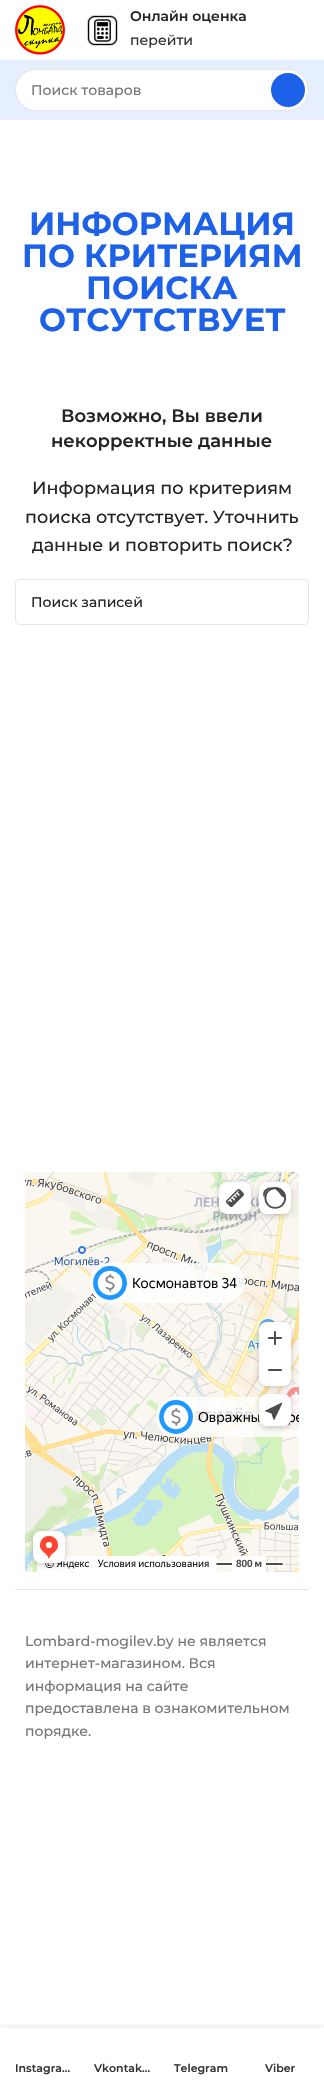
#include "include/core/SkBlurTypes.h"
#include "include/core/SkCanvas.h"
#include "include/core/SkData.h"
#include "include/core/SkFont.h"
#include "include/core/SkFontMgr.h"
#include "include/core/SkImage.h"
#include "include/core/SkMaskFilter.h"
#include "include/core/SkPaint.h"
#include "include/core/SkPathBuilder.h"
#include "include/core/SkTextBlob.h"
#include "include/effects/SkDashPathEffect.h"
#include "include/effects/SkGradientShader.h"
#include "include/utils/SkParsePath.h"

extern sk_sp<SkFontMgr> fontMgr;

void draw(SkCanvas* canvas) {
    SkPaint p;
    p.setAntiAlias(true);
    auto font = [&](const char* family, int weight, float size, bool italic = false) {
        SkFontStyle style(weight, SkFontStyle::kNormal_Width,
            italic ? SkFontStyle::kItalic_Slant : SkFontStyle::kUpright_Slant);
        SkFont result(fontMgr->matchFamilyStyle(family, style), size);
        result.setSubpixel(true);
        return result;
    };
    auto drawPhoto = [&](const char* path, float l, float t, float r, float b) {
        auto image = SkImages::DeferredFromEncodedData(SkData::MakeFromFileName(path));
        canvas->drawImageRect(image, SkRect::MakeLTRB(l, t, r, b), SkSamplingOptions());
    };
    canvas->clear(0xFFFFFFFF);
    drawPhoto("media/1.png", 15, 5, 65, 55);
    drawPhoto("media/2.png", 87, 15, 118, 46);
    auto font1 = font("Montserrat", 600, 14);
    p.setColor(0xFF242424);
    canvas->drawString("Онлайн оценка", 130, 21, font1, p);
    auto font2 = font("Montserrat", 500, 14);
    p.setColor(0xFF333333);
    canvas->drawString("перейти", 130, 45, font2, p);
    p.setColor(0xFFE6EFFD);
    canvas->drawRect(SkRect::MakeLTRB(0, 60, 324, 120), p);
    p.setColor(0xFFFFFFFF);
    canvas->drawRoundRect(SkRect::MakeLTRB(15, 69, 309, 111), 21, 21, p);
    p.setStyle(SkPaint::kStroke_Style);
    p.setStrokeWidth(1);
    p.setColor(0x1A000000);
    canvas->drawRoundRect(SkRect::MakeLTRB(15.5f, 69.5f, 308.5f, 110.5f), 20.5f, 20.5f, p);
    p.setStyle(SkPaint::kFill_Style);
    p.setColor(0xFF777777);
    canvas->drawString("Поиск товаров", 31, 95, font2, p);
    p.setColor(0xFF1C61E7);
    canvas->drawCircle(288, 90, 17, p);
    auto font3 = font("Montserrat", 700, 32);
    {
        const struct { const char* s; float x, y; } items[] = {
            {"ИНФОРМАЦИЯ", 29, 235},
            {"ПО КРИТЕРИЯМ", 22, 267},
            {"ПОИСКА", 86, 299},
            {"ОТСУТСТВУЕТ", 39, 331},
        };
        for (auto [s, x, y] : items) {
            canvas->drawString(s, x, y, font3, p);
        }
    }
    auto font4 = font("Montserrat", 600, 18);
    p.setColor(0xFF242424);
    canvas->drawString("Возможно, Вы ввели", 61, 422, font4, p);
    canvas->drawString("некорректные данные", 51, 447, font4, p);
    auto font5 = font("Montserrat", 500, 17.6f);
    {
        const struct { const char* s; float x, y; } items[] = {
            {"Информация по критериям", 32, 494},
            {"поиска отсутствует. Уточнить", 25, 523},
            {"данные и повторить поиск?", 32, 551},
        };
        for (auto [s, x, y] : items) {
            canvas->drawString(s, x, y, font5, p);
        }
    }
    p.setStyle(SkPaint::kStroke_Style);
    p.setColor(0xFFE6E6E6);
    canvas->drawRoundRect(SkRect::MakeLTRB(15.5f, 579.5f, 308.5f, 624.5f), 4.5f, 4.5f, p);
    p.setStyle(SkPaint::kFill_Style);
    p.setColor(0xFF242424);
    canvas->drawString("Поиск записей", 31, 607, font2, p);
    p.setColor(0xFFE4E4E4);
    canvas->drawRect(SkRect::MakeLTRB(15, 1589, 309, 1590), p);
    drawPhoto("media/3.png", 25, 1172, 299, 1572);
    p.setColor(0xFF777777);
    {
        const struct { const char* s; float x, y; } items[] = {
            {"Lombard-mogilev.by не является", 25, 1646},
            {"интернет-магазином. Вся", 25, 1668},
            {"информация на сайте", 25, 1691},
            {"предоставлена в ознакомительном", 25, 1713},
            {"порядке.", 25, 1736},
        };
        for (auto [s, x, y] : items) {
            canvas->drawString(s, x, y, font2, p);
        }
    }
    canvas->save();
    canvas->clipRect(SkRect::MakeLTRB(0, 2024, 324, 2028));
    p.setColor(0x1F000000);
    p.setMaskFilter(SkMaskFilter::MakeBlur(kNormal_SkBlurStyle, 4.5f));
    canvas->drawRect(SkRect::MakeLTRB(0, 2028, 324, 2083), p);
    p.setMaskFilter(nullptr);
    canvas->restore();
    auto font6 = font("Montserrat", 600, 11);
    p.setColor(0xFF333333);
    {
        const struct { const char* s; float x, y; } items[] = {
            {"Instagra…", 15, 2072},
            {"Vkontak…", 94, 2072},
            {"Telegram", 174, 2072},
            {"Viber", 265, 2072},
        };
        for (auto [s, x, y] : items) {
            canvas->drawString(s, x, y, font6, p);
        }
    }
}
